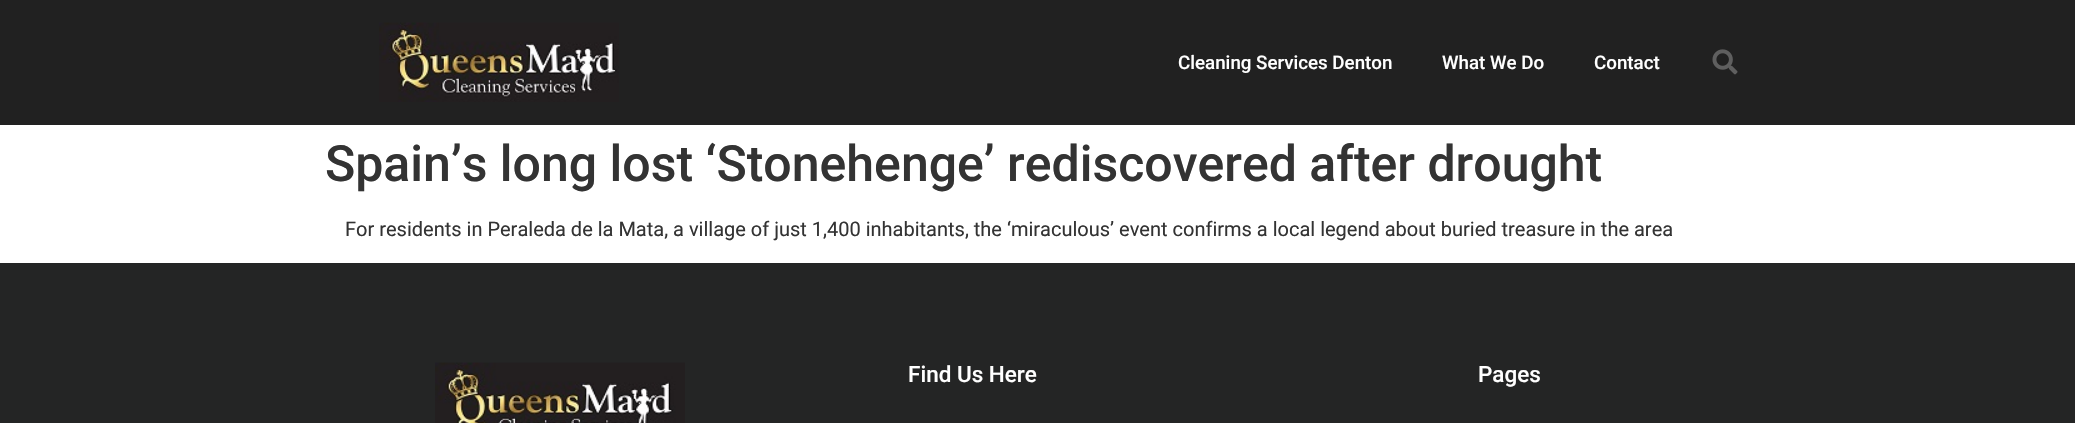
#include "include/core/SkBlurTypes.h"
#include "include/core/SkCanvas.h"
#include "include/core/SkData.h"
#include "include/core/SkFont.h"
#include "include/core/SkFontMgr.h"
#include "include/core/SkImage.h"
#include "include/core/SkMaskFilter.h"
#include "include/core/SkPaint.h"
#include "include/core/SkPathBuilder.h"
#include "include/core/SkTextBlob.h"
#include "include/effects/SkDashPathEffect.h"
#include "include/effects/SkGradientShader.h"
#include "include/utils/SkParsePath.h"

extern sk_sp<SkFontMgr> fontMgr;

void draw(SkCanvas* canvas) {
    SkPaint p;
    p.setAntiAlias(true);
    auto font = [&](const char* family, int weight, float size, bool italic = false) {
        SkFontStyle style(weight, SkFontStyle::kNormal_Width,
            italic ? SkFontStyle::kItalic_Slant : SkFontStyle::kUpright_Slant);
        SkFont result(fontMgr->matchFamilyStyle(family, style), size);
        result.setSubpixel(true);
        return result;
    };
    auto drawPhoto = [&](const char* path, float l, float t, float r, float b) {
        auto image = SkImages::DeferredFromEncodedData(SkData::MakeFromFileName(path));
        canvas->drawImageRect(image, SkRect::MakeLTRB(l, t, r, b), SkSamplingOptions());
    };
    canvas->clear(0xFFFFFFFF);
    p.setColor(0xFF212121);
    canvas->drawRect(SkRect::MakeLTRB(0, 0, 2075, 125), p);
    drawPhoto("media/1.png", 379, 22, 619, 102);
    auto font1 = font("Roboto", 500, 18.75f);
    p.setColor(0xFFFFFFFF);
    {
        const struct { const char* s; float x, y; } items[] = {
            {"Cleaning Services Denton", 1178, 69},
            {"What We Do", 1442, 69},
            {"Contact", 1594, 69},
        };
        for (auto [s, x, y] : items) {
            canvas->drawString(s, x, y, font1, p);
        }
    }
    drawPhoto("media/2.png", 1712, 49, 1738, 75);
    auto font2 = font("Roboto", 500, 50);
    p.setColor(0xFF333333);
    canvas->drawString("Spain’s long lost ‘Stonehenge’ rediscovered after drought", 325, 181, font2, p);
    auto font3 = font("Roboto", 400, 20);
    canvas->drawString("For residents in Peraleda de la Mata, a village of just 1,400 inhabitants, the ‘miraculous’ event confirms a local legend about buried treasure in the area", 345, 236, font3, p);
    p.setColor(0xFF242525);
    canvas->drawRect(SkRect::MakeLTRB(0, 263, 2075, 423), p);
    drawPhoto("media/3.png", 435, 362, 685, 423);
    auto font4 = font("Roboto", 500, 22.5f);
    p.setColor(0xFFFFFFFF);
    canvas->drawString("Find Us Here", 908, 382, font4, p);
    canvas->drawString("Pages", 1478, 382, font4, p);
}
